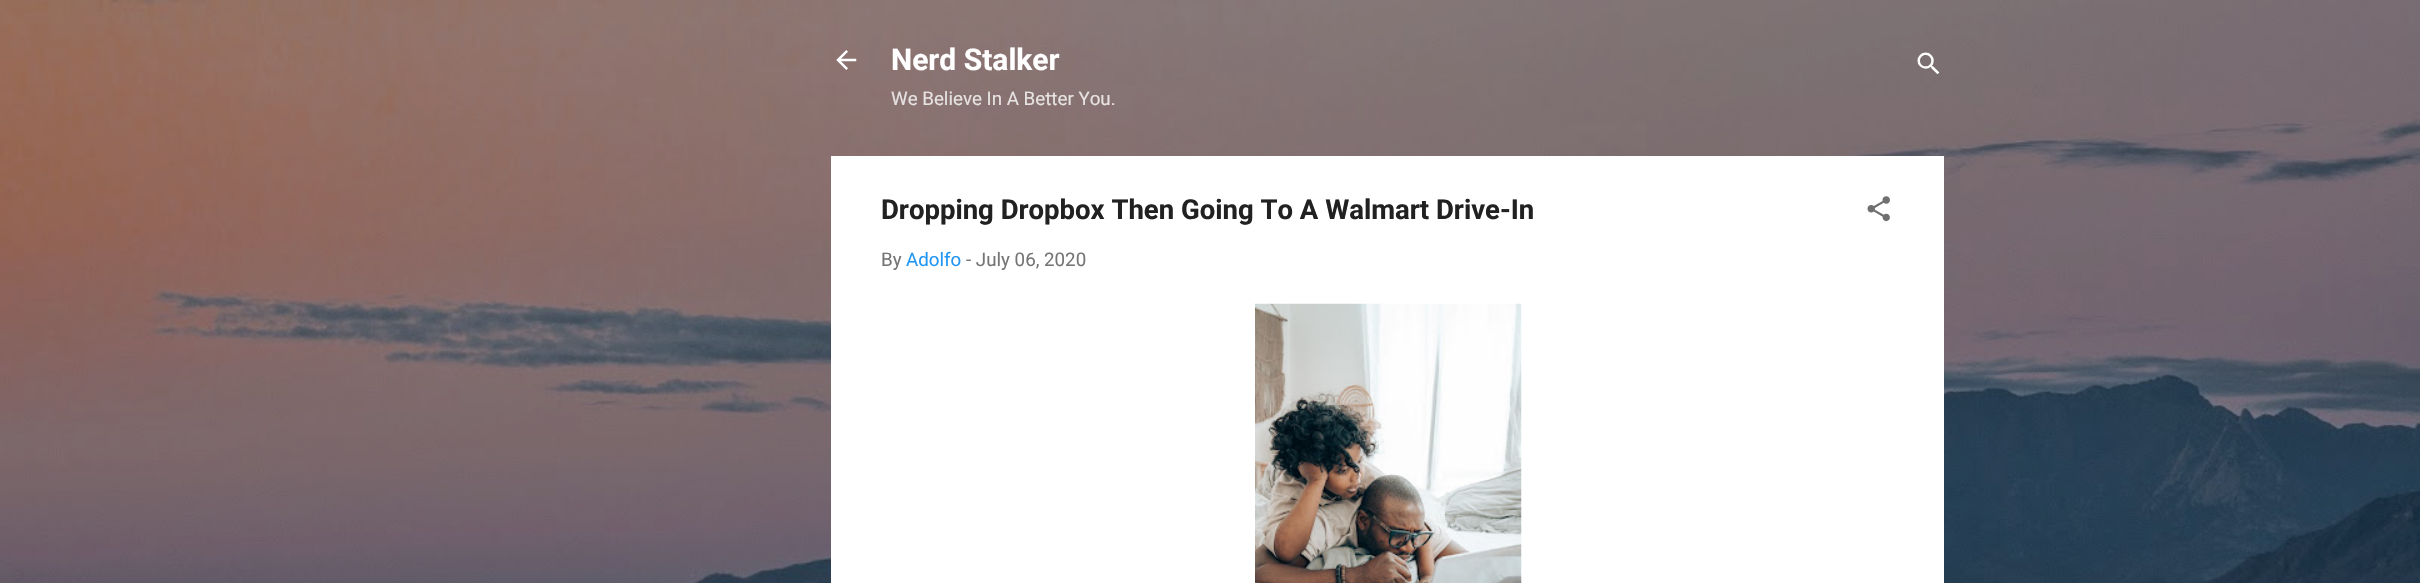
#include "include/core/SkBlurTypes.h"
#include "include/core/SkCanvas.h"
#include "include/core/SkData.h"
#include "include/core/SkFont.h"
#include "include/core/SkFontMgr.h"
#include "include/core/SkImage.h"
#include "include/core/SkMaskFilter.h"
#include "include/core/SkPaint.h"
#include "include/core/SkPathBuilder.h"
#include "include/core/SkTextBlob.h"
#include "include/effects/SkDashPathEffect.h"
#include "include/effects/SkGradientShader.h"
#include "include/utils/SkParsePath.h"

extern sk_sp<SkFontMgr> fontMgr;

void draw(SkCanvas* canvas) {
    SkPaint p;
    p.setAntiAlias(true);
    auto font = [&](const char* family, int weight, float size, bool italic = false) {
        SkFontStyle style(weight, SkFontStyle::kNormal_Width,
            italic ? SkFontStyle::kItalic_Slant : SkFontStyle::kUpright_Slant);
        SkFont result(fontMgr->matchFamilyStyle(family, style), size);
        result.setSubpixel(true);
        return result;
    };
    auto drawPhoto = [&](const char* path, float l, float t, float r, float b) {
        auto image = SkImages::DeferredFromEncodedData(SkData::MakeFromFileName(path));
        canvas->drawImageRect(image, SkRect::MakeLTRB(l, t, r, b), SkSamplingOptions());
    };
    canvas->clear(0xFFFFFFFF);
    drawPhoto("media/1.png", 0, 0, 2420, 583);
    drawPhoto("media/2.png", 836, 50, 857, 70);
    auto font1 = font("Roboto", 700, 30);
    p.setColor(0xFFFFFFFF);
    canvas->drawString("Nerd Stalker", 891, 70, font1, p);
    auto font2 = font("Roboto", 400, 18.75f);
    p.setColor(0xFFE7E3E3);
    canvas->drawString("We Believe In A Better You.", 891, 105, font2, p);
    drawPhoto("media/3.png", 1917, 52, 1940, 75);
    p.setColor(0xFFFFFFFF);
    canvas->drawRect(SkRect::MakeLTRB(831, 156, 1944, 583), p);
    auto font3 = font("Roboto", 700, 27.5f);
    p.setColor(0xFF212121);
    canvas->drawString("Dropping Dropbox Then Going To A Walmart Drive-In", 881, 219, font3, p);
    drawPhoto("media/4.png", 1867, 196, 1890, 222);
    p.setColor(0xFF757575);
    canvas->drawString("By", 881, 266, font2, p);
    p.setColor(0xFF2196F3);
    canvas->drawString("Adolfo", 906, 266, font2, p);
    p.setColor(0xFF757575);
    canvas->drawString("- July 06, 2020", 966, 266, font2, p);
    drawPhoto("media/5.png", 1255, 303, 1522, 583);
}
